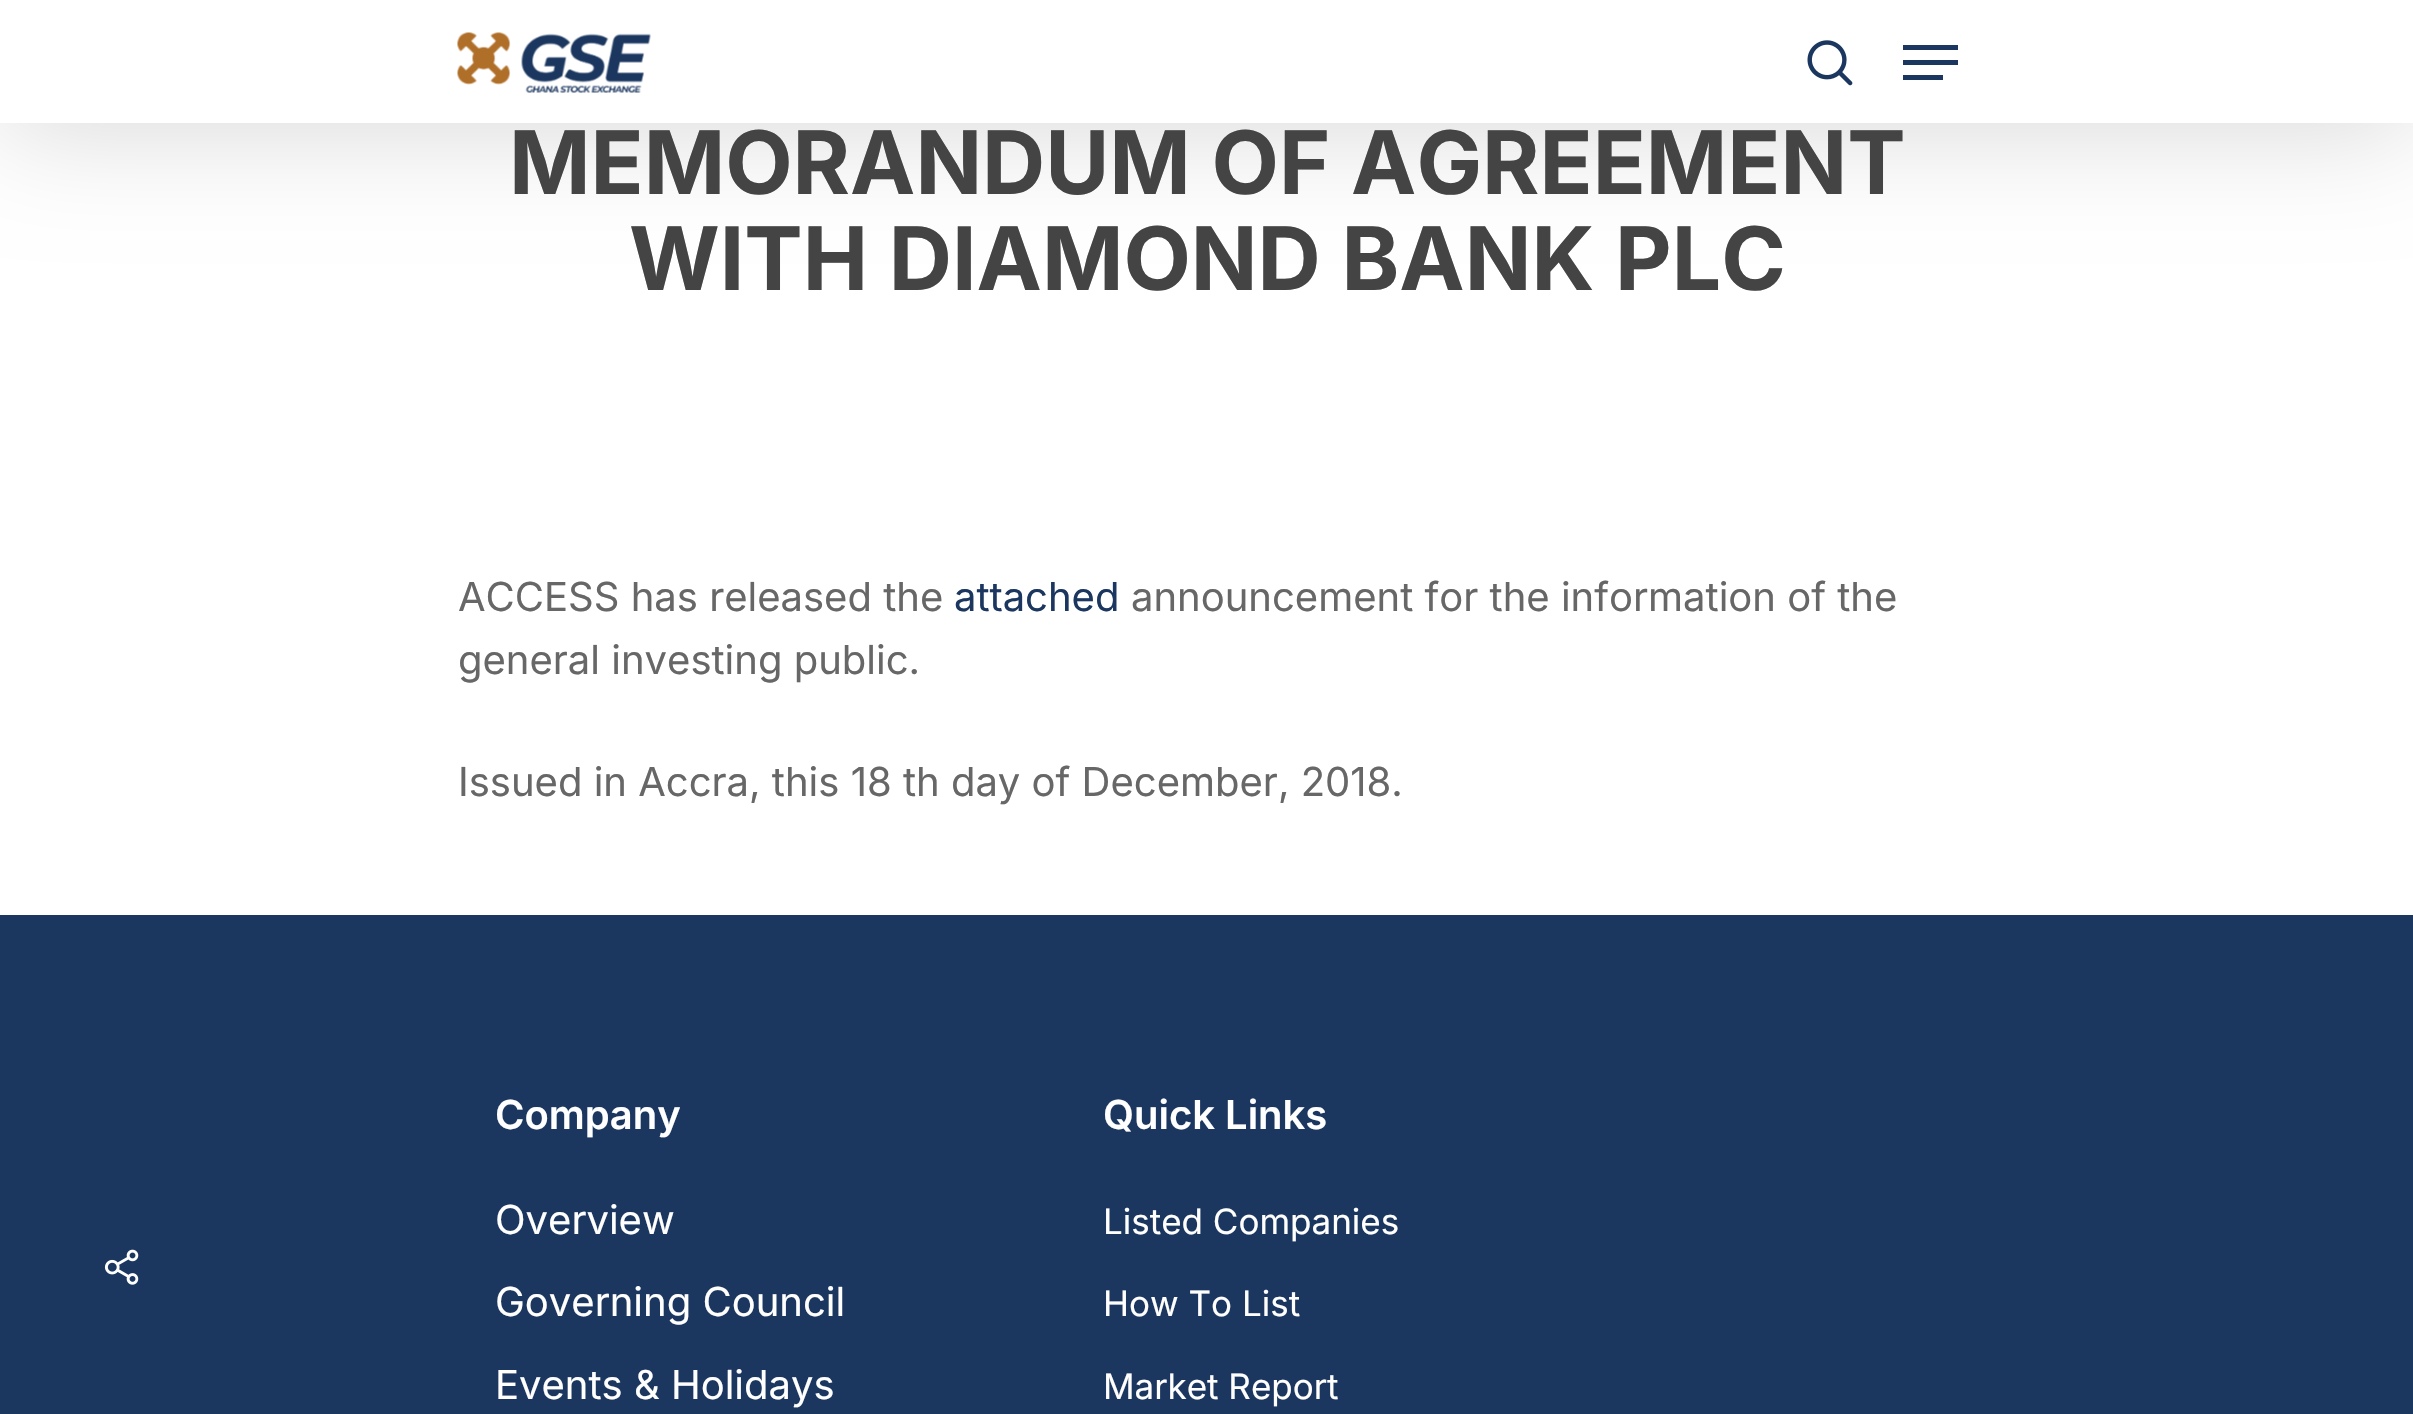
#include "include/core/SkBlurTypes.h"
#include "include/core/SkCanvas.h"
#include "include/core/SkData.h"
#include "include/core/SkFont.h"
#include "include/core/SkFontMgr.h"
#include "include/core/SkImage.h"
#include "include/core/SkMaskFilter.h"
#include "include/core/SkPaint.h"
#include "include/core/SkPathBuilder.h"
#include "include/core/SkTextBlob.h"
#include "include/effects/SkDashPathEffect.h"
#include "include/effects/SkGradientShader.h"
#include "include/utils/SkParsePath.h"

extern sk_sp<SkFontMgr> fontMgr;

void draw(SkCanvas* canvas) {
    SkPaint p;
    p.setAntiAlias(true);
    auto font = [&](const char* family, int weight, float size, bool italic = false) {
        SkFontStyle style(weight, SkFontStyle::kNormal_Width,
            italic ? SkFontStyle::kItalic_Slant : SkFontStyle::kUpright_Slant);
        SkFont result(fontMgr->matchFamilyStyle(family, style), size);
        result.setSubpixel(true);
        return result;
    };
    auto drawPhoto = [&](const char* path, float l, float t, float r, float b) {
        auto image = SkImages::DeferredFromEncodedData(SkData::MakeFromFileName(path));
        canvas->drawImageRect(image, SkRect::MakeLTRB(l, t, r, b), SkSamplingOptions());
    };
    canvas->clear(0xFFFFFFFF);
    p.setColor(0x26000000);
    p.setMaskFilter(SkMaskFilter::MakeBlur(kNormal_SkBlurStyle, 56));
    canvas->drawRect(SkRect::MakeLTRB(0, -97, 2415, 130), p);
    p.setMaskFilter(nullptr);
    p.setColor(0xFFFFFFFF);
    canvas->drawRect(SkRect::MakeLTRB(0, 0, 2413, 123), p);
    drawPhoto("media/1.png", 457, 32, 651, 93);
    drawPhoto("media/2.png", 1807, 40, 1853, 86);
    {
        const struct { float l, t, r, b; SkColor color; } items[] = {
            {1903, 45, 1958, 50, 0xFF1B365F},
            {1903, 75, 1943, 80, 0xFF1B365F},
            {1903, 60, 1958, 65, 0xFF1B365F},
        };
        for (auto [l, t, r, b, color] : items) {
            p.setColor(color);
            canvas->drawRect(SkRect::MakeLTRB(l, t, r, b), p);
        }
    }
    auto font1 = font("Inter", 700, 87.5f);
    p.setColor(0xFF444444);
    canvas->drawString("MEMORANDUM OF AGREEMENT", 509, 194, font1, p);
    canvas->drawString("WITH DIAMOND BANK PLC", 629, 290, font1, p);
    auto font2 = font("Inter", 400, 40);
    p.setColor(0xFF676767);
    canvas->drawString("ACCESS has released the", 458, 611, font2, p);
    p.setColor(0xFF1B365F);
    canvas->drawString("attached", 954, 611, font2, p);
    p.setColor(0xFF676767);
    {
        const struct { const char* s; float x, y; } items[] = {
            {"announcement for the information of the", 1131, 611},
            {"general investing public.", 458, 674},
            {"Issued in Accra, this 18 th day of December, 2018.", 458, 796},
        };
        for (auto [s, x, y] : items) {
            canvas->drawString(s, x, y, font2, p);
        }
    }
    p.setColor(0xFF1B365F);
    canvas->drawRect(SkRect::MakeLTRB(0, 915, 2413, 1414), p);
    drawPhoto("media/3.png", 104, 1249, 139, 1285);
    auto font3 = font("Inter", 600, 40);
    p.setColor(0xFFFFFFFF);
    canvas->drawString("Company", 495, 1129, font3, p);
    {
        const struct { const char* s; float x, y; } items[] = {
            {"Overview", 495, 1234},
            {"Governing Council", 495, 1316},
            {"Events & Holidays", 495, 1399},
        };
        for (auto [s, x, y] : items) {
            canvas->drawString(s, x, y, font2, p);
        }
    }
    canvas->drawString("Quick Links", 1103, 1129, font3, p);
    auto font4 = font("Inter", 400, 35);
    {
        const struct { const char* s; float x, y; } items[] = {
            {"Listed Companies", 1103, 1234},
            {"How To List", 1103, 1316},
            {"Market Report", 1103, 1399},
        };
        for (auto [s, x, y] : items) {
            canvas->drawString(s, x, y, font4, p);
        }
    }
}
